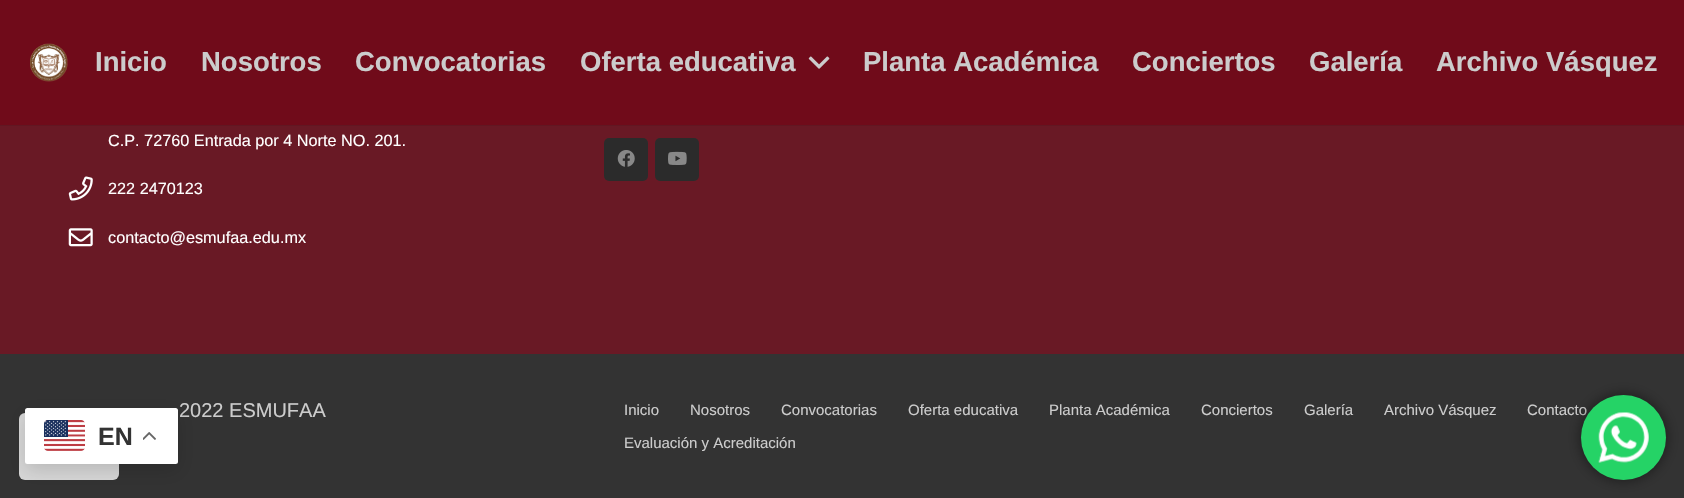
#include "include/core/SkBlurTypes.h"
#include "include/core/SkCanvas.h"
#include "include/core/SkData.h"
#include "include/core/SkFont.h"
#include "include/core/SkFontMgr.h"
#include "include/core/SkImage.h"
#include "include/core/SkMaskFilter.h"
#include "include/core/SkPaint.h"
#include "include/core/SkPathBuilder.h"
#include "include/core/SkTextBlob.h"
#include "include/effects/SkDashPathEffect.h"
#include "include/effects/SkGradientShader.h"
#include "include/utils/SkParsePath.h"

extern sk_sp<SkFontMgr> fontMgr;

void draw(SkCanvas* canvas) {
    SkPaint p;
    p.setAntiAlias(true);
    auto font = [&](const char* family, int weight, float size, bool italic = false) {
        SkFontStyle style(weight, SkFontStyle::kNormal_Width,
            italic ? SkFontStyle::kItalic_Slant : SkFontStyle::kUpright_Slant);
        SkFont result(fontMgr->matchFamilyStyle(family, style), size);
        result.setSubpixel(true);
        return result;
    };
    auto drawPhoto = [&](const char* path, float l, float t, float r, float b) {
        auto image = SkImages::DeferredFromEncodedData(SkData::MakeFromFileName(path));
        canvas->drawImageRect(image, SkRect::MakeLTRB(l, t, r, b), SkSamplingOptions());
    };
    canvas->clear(0xFF691925);
    p.setColor(0xFF611722);
    canvas->drawRect(SkRect::MakeLTRB(0, 125, 1684, 126), p);
    p.setColor(0xFF700B1A);
    canvas->drawRect(SkRect::MakeLTRB(0, 0, 1684, 125), p);
    drawPhoto("media/1.png", 30, 43, 68, 82);
    auto font1 = font("Liberation Sans", 700, 27.5f);
    p.setColor(0xFFCCCCCC);
    {
        const struct { const char* s; float x, y; } items[] = {
            {"Inicio", 95, 71},
            {"Nosotros", 201, 71},
            {"Convocatorias", 355, 71},
            {"Oferta educativa", 580, 71},
        };
        for (auto [s, x, y] : items) {
            canvas->drawString(s, x, y, font1, p);
        }
    }
    drawPhoto("media/2.png", 808, 56, 830, 69);
    {
        const struct { const char* s; float x, y; } items[] = {
            {"Planta Académica", 863, 71},
            {"Conciertos", 1132, 71},
            {"Galería", 1309, 71},
            {"Archivo Vásquez", 1436, 71},
        };
        for (auto [s, x, y] : items) {
            canvas->drawString(s, x, y, font1, p);
        }
    }
    p.setColor(0xFF333333);
    canvas->drawRect(SkRect::MakeLTRB(0, 354, 1684, 498), p);
    p.setColor(0xCCFFFFFF);
    canvas->drawRoundRect(SkRect::MakeLTRB(19, 413, 119, 480), 6, 6, p);
    auto font2 = font("Liberation Sans", 400, 16.25f);
    p.setColor(0xFFFFFFFF);
    canvas->drawString("C.P. 72760 Entrada por 4 Norte NO. 201.", 108, 146, font2, p);
    drawPhoto("media/3.png", 68, 176, 93, 201);
    canvas->drawString("222 2470123", 108, 194, font2, p);
    drawPhoto("media/4.png", 68, 228, 93, 247);
    canvas->drawString("contacto@esmufaa.edu.mx", 108, 243, font2, p);
    p.setColor(0xFF2B2B2B);
    canvas->drawRoundRect(SkRect::MakeLTRB(604, 138, 648, 181), 5, 5, p);
    drawPhoto("media/5.png", 617, 150, 635, 167);
    canvas->drawRoundRect(SkRect::MakeLTRB(655, 138, 699, 181), 5, 5, p);
    drawPhoto("media/6.png", 668, 151, 687, 165);
    auto font3 = font("Liberation Sans", 400, 20);
    p.setColor(0xFFCCCCCC);
    canvas->drawString("2022 ESMUFAA", 179, 417, font3, p);
    auto font4 = font("Liberation Sans", 400, 15);
    {
        const struct { const char* s; float x, y; } items[] = {
            {"Inicio", 624, 415},
            {"Nosotros", 690, 415},
            {"Convocatorias", 781, 415},
            {"Oferta educativa", 908, 415},
            {"Planta Académica", 1049, 415},
            {"Conciertos", 1201, 415},
            {"Galería", 1304, 415},
            {"Archivo Vásquez", 1384, 415},
            {"Contacto", 1527, 415},
            {"Evaluación y Acreditación", 624, 448},
        };
        for (auto [s, x, y] : items) {
            canvas->drawString(s, x, y, font4, p);
        }
    }
    p.setColor(0x80000000);
    p.setMaskFilter(SkMaskFilter::MakeBlur(kNormal_SkBlurStyle, 7));
    canvas->drawRoundRect(SkRect::MakeLTRB(1581, 395, 1666, 480), 42.5f, 42.5f, p);
    p.setMaskFilter(nullptr);
    p.setColor(0xFF25D366);
    canvas->drawCircle(1623.5f, 437.5f, 42.5f, p);
    drawPhoto("media/7.png", 1598, 412, 1649, 463);
    p.setColor(0x26000000);
    p.setMaskFilter(SkMaskFilter::MakeBlur(kNormal_SkBlurStyle, 9.5f));
    canvas->drawRoundRect(SkRect::MakeLTRB(25, 414, 178, 470), 2.5f, 2.5f, p);
    p.setMaskFilter(nullptr);
    p.setColor(0xFFFFFFFF);
    canvas->drawRoundRect(SkRect::MakeLTRB(25, 408, 178, 464), 2.5f, 2.5f, p);
    drawPhoto("media/8.png", 44, 420, 85, 451);
    auto font5 = font("Liberation Sans", 700, 25);
    p.setColor(0xFF333333);
    canvas->drawString("EN", 98, 445, font5, p);
    drawPhoto("media/9.png", 143, 432, 156, 440);
}
